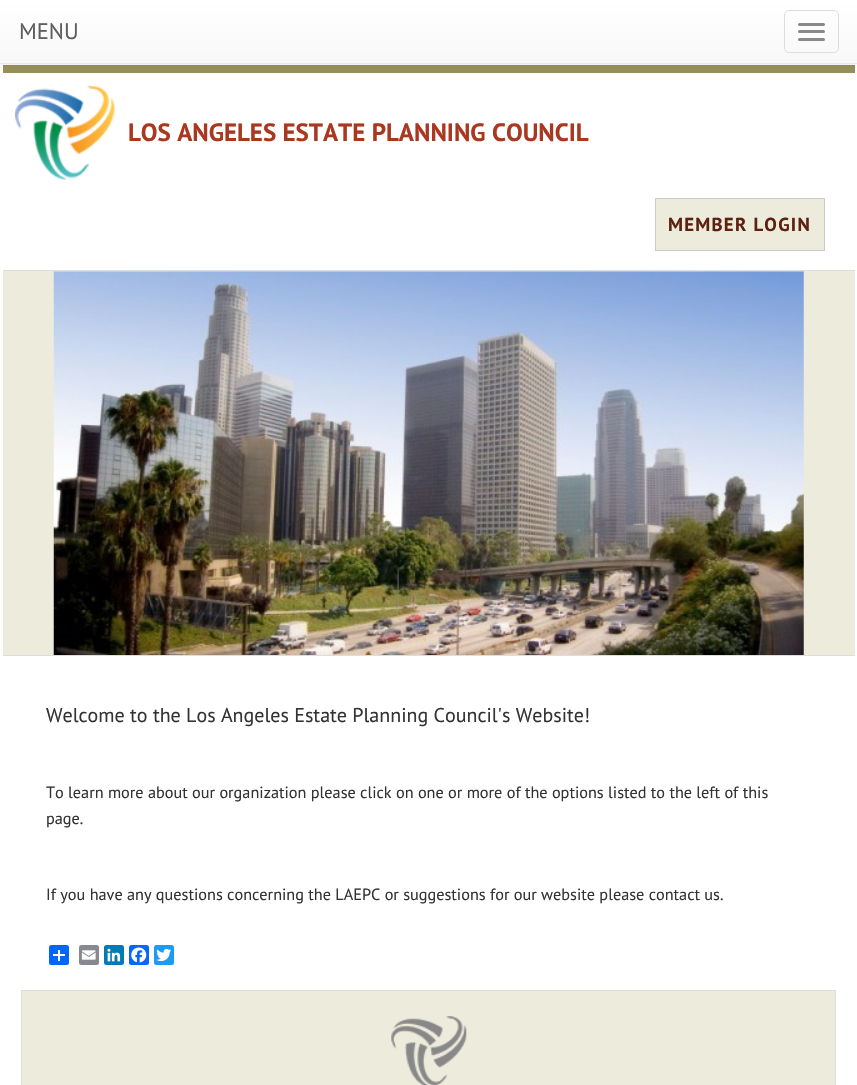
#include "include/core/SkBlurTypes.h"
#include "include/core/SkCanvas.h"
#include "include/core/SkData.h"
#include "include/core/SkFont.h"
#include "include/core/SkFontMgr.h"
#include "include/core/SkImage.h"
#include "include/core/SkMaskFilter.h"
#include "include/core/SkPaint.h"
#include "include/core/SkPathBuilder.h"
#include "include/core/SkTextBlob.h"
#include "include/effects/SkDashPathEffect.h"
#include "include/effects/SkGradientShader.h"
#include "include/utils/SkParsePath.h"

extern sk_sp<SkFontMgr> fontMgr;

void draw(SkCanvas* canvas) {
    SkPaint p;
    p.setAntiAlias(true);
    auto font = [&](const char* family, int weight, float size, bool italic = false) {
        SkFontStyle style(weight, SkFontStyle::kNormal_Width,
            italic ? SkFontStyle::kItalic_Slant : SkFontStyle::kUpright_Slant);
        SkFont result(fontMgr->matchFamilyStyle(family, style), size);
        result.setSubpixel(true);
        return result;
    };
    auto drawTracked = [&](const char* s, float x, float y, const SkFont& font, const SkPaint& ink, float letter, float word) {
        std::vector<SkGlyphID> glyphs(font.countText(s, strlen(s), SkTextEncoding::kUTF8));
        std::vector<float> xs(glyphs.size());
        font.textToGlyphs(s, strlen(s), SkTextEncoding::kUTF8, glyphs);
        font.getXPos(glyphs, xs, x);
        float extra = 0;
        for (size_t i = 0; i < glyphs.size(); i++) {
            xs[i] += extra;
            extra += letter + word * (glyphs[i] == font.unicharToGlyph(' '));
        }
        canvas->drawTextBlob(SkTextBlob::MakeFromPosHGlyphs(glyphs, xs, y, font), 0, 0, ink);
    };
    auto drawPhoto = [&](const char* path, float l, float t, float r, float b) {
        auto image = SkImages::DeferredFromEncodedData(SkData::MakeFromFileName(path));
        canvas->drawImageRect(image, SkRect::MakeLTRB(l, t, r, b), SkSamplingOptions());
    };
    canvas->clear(0xFFFFFFFF);
    p.setColor(0xFF96915B);
    canvas->drawRect(SkRect::MakeLTRB(3, 65, 855, 73), p);
    p.setColor(0x12000000);
    p.setMaskFilter(SkMaskFilter::MakeBlur(kNormal_SkBlurStyle, 3));
    canvas->drawRect(SkRect::MakeLTRB(0, 1, 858, 65), p);
    p.setMaskFilter(nullptr);
    {
        const SkColor colors[] = {0xFFFFFFFF, 0xFFF8F8F8};
        const float stops[] = {0, 1};
        const SkPoint ends[] = {{429, 0}, {429, 63}};
        p.setShader(SkGradientShader::MakeLinear(ends, colors, stops, 2, SkTileMode::kClamp));
        p.setAlpha(255);
    }
    canvas->drawRect(SkRect::MakeLTRB(0, 0, 857, 63), p);
    p.setShader(nullptr);
    p.setColor(0xFFE7E7E7);
    canvas->drawRect(SkRect::MakeLTRB(0, 63, 857, 64), p);
    auto font1 = font("PT Sans", 400, 22.5f);
    p.setColor(0xFF5E5E5E);
    canvas->drawString("MENU", 19, 39, font1, p);
    p.setStyle(SkPaint::kStroke_Style);
    p.setStrokeWidth(1);
    p.setColor(0xFFDDDDDD);
    canvas->drawRoundRect(SkRect::MakeLTRB(784.5f, 10.5f, 838.5f, 52.5f), 4.5f, 4.5f, p);
    p.setStyle(SkPaint::kFill_Style);
    p.setColor(0xFF888888);
    canvas->drawRoundRect(SkRect::MakeLTRB(798, 23, 825, 26), 1.5f, 1.5f, p);
    canvas->drawRoundRect(SkRect::MakeLTRB(798, 30, 825, 33), 1.5f, 1.5f, p);
    canvas->drawRoundRect(SkRect::MakeLTRB(798, 38, 825, 41), 1.5f, 1.5f, p);
    p.setColor(0xFFDDDDDD);
    canvas->drawRect(SkRect::MakeLTRB(3, 270, 855, 271), p);
    drawPhoto("media/1.png", 15, 85, 115, 180);
    auto font2 = font("PT Sans", 700, 25);
    p.setColor(0xFFAA3820);
    canvas->drawString("LOS ANGELES ESTATE PLANNING COUNCIL", 128, 141, font2, p);
    p.setColor(0xFFECEBDC);
    canvas->drawRect(SkRect::MakeLTRB(655.5f, 198.5f, 824.5f, 250.5f), p);
    p.setStyle(SkPaint::kStroke_Style);
    p.setColor(0xFFCCCCCC);
    canvas->drawRect(SkRect::MakeLTRB(655.5f, 198.5f, 824.5f, 250.5f), p);
    auto font3 = font("PT Sans", 700, 18.75f);
    p.setStyle(SkPaint::kFill_Style);
    p.setColor(0xFF5C210F);
    drawTracked("MEMBER LOGIN", 668, 231, font3, p, 1.25f, 0);
    p.setColor(0xFFECEBDC);
    canvas->drawRect(SkRect::MakeLTRB(3, 271, 855, 655), p);
    p.setColor(0xFFDDDDDD);
    canvas->drawRect(SkRect::MakeLTRB(3, 655, 855, 656), p);
    drawPhoto("media/2.png", 53, 271, 804, 655);
    auto font4 = font("PT Sans", 400, 20);
    p.setColor(0xFF333333);
    canvas->drawString("Welcome to the Los Angeles Estate Planning Council's Website!", 46, 722, font4, p);
    auto font5 = font("PT Sans", 400, 16.25f);
    {
        const struct { const char* s; float x, y; } items[] = {
            {"To learn more about our organization please click on one or more of the options listed to the left of this", 46, 798},
            {"page.", 46, 824},
            {"If you have any questions concerning the LAEPC or suggestions for our website please contact us.", 46, 900},
        };
        for (auto [s, x, y] : items) {
            canvas->drawString(s, x, y, font5, p);
        }
    }
    p.setColor(0xFF0166FF);
    canvas->drawRoundRect(SkRect::MakeLTRB(49, 945, 69, 965), 2.5f, 2.5f, p);
    p.setColor(0xFFFFFFFF);
    canvas->drawRect(SkRect::MakeLTRB(58, 950, 60, 961), p);
    canvas->drawRect(SkRect::MakeLTRB(53, 954, 65, 956), p);
    p.setColor(0xFF888990);
    canvas->drawRoundRect(SkRect::MakeLTRB(79, 945, 99, 965), 2.5f, 2.5f, p);
    drawPhoto("media/3.png", 81, 950, 96, 960);
    p.setColor(0xFF007BB5);
    canvas->drawRoundRect(SkRect::MakeLTRB(104, 945, 124, 965), 2.5f, 2.5f, p);
    drawPhoto("media/4.png", 107, 948, 121, 962);
    p.setColor(0xFF0866FF);
    canvas->drawRoundRect(SkRect::MakeLTRB(129, 945, 149, 965), 2.5f, 2.5f, p);
    drawPhoto("media/5.png", 131, 947, 147, 963);
    p.setColor(0xFF1D9BF0);
    canvas->drawRoundRect(SkRect::MakeLTRB(154, 945, 174, 965), 2.5f, 2.5f, p);
    drawPhoto("media/6.png", 156, 948, 172, 962);
    p.setColor(0xFFECEBDC);
    canvas->drawRect(SkRect::MakeLTRB(21.5f, 990.5f, 835.5f, 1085.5f), p);
    p.setStyle(SkPaint::kStroke_Style);
    p.setColor(0xFFDDDDDD);
    canvas->drawRect(SkRect::MakeLTRB(21.5f, 990.5f, 835.5f, 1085.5f), p);
    drawPhoto("media/7.png", 391, 1016, 467, 1085);
}
